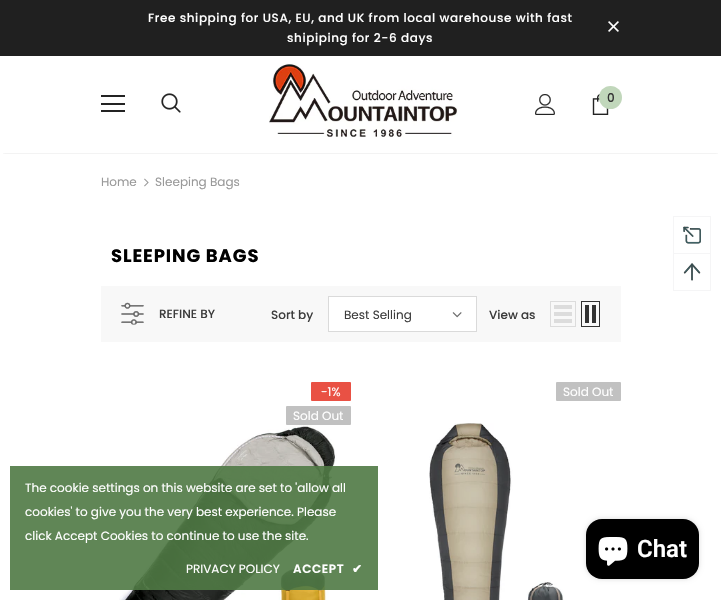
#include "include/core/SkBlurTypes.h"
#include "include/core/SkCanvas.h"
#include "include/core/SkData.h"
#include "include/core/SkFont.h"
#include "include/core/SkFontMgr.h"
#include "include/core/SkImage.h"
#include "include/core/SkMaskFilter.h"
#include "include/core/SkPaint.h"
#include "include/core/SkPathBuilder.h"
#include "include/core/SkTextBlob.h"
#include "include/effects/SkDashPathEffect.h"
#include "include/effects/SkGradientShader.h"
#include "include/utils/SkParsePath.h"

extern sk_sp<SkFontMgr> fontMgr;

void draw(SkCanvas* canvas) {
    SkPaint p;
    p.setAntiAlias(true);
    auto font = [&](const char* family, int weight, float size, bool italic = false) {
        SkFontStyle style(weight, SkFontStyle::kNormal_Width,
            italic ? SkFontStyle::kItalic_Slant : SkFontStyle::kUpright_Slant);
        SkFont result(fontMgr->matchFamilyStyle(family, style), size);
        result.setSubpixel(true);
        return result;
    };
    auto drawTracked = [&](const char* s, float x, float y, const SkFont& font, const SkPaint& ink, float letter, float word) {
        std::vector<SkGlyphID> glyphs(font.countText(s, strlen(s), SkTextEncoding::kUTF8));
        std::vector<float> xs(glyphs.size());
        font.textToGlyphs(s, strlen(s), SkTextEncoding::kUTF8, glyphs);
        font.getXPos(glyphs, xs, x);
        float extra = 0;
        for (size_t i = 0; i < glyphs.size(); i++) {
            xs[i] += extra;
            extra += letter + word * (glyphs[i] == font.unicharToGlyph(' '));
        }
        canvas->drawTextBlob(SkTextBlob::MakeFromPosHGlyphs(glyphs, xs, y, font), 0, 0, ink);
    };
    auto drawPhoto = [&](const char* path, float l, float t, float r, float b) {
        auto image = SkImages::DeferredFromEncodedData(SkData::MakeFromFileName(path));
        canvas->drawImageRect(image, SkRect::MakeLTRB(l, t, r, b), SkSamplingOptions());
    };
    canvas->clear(0xFFFFFFFF);
    p.setColor(0xFF202020);
    canvas->drawRect(SkRect::MakeLTRB(0, 0, 721, 56), p);
    auto font1 = font("Poppins", 500, 12);
    p.setColor(0xFFFFFFFF);
    drawTracked("Free shipping for USA, EU, and UK from local warehouse with fast", 148, 22, font1, p, 0.6f, 0);
    drawTracked("shipiping for 2-6 days", 287, 42, font1, p, 0.6f, 0);
    drawPhoto("media/1.png", 608, 21, 619, 32);
    canvas->save();
    canvas->clipRect(SkRect::MakeLTRB(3, 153, 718, 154));
    p.setColor(0x1F000000);
    p.setMaskFilter(SkMaskFilter::MakeBlur(kNormal_SkBlurStyle, 1.5f));
    canvas->drawRect(SkRect::MakeLTRB(3, 62, 718, 153), p);
    p.setMaskFilter(nullptr);
    canvas->restore();
    {
        const struct { float l, t, r, b; SkColor color; } items[] = {
            {101, 95, 125, 97, 0xFF232323},
            {101, 103, 125, 105, 0xFF232323},
            {101, 110, 125, 112, 0xFF232323},
        };
        for (auto [l, t, r, b, color] : items) {
            p.setColor(color);
            canvas->drawRect(SkRect::MakeLTRB(l, t, r, b), p);
        }
    }
    drawPhoto("media/2.png", 161, 93, 181, 113);
    drawPhoto("media/3.png", 269, 63, 458, 137);
    drawPhoto("media/4.png", 535, 94, 555, 115);
    drawPhoto("media/5.png", 592, 94, 609, 115);
    p.setColor(0xFFC1D7BB);
    canvas->drawCircle(610.5f, 97.5f, 11.5f, p);
    p.setColor(0xFF323232);
    canvas->drawString("0", 607, 102, font1, p);
    auto font2 = font("Poppins", 400, 12);
    p.setColor(0xFF999999);
    canvas->drawString("Home", 101, 186, font2, p);
    drawPhoto("media/6.png", 144, 178, 149, 187);
    canvas->drawString("Sleeping Bags", 155, 186, font2, p);
    auto font3 = font("Poppins", 700, 18);
    p.setColor(0xFF000000);
    drawTracked("SLEEPING BAGS", 111, 262, font3, p, 0.9f, 0);
    p.setColor(0xFFF8F8F8);
    canvas->drawRect(SkRect::MakeLTRB(101, 286, 621, 342), p);
    drawPhoto("media/7.png", 121, 302, 144, 325);
    p.setColor(0xFF3C3C3C);
    canvas->drawString("REFINE BY", 159, 318, font1, p);
    canvas->drawString("Sort by", 271, 319, font1, p);
    p.setColor(0xFFFFFFFF);
    canvas->drawRect(SkRect::MakeLTRB(328.5f, 296.5f, 476.5f, 331.5f), p);
    p.setStyle(SkPaint::kStroke_Style);
    p.setStrokeWidth(1);
    p.setColor(0xFFDADADA);
    canvas->drawRect(SkRect::MakeLTRB(328.5f, 296.5f, 476.5f, 331.5f), p);
    p.setStyle(SkPaint::kFill_Style);
    p.setColor(0xFF3C3C3C);
    canvas->drawString("Best Selling", 344, 319, font2, p);
    drawPhoto("media/8.png", 452, 312, 462, 318);
    canvas->drawString("View as", 489, 319, font1, p);
    p.setStyle(SkPaint::kStroke_Style);
    p.setColor(0xFFDCDCDC);
    canvas->drawRect(SkRect::MakeLTRB(550.5f, 301.5f, 575.5f, 326.5f), p);
    p.setStyle(SkPaint::kFill_Style);
    {
        const struct { float l, t, r, b; SkColor color; } items[] = {
            {554, 319, 572, 323, 0xFFDCDCDC},
            {554, 312, 572, 316, 0xFFDCDCDC},
            {554, 305, 572, 309, 0xFFDCDCDC},
        };
        for (auto [l, t, r, b, color] : items) {
            p.setColor(color);
            canvas->drawRect(SkRect::MakeLTRB(l, t, r, b), p);
        }
    }
    p.setStyle(SkPaint::kStroke_Style);
    p.setColor(0xFF323232);
    canvas->drawRect(SkRect::MakeLTRB(581.5f, 301.5f, 599.5f, 326.5f), p);
    p.setStyle(SkPaint::kFill_Style);
    canvas->drawRect(SkRect::MakeLTRB(592, 305, 596, 323), p);
    canvas->drawRect(SkRect::MakeLTRB(585, 305, 589, 323), p);
    p.setColor(0xFFE95144);
    canvas->drawRoundRect(SkRect::MakeLTRB(311, 382, 351, 401), 1, 1, p);
    p.setColor(0xFFFFFFFF);
    canvas->drawString("-1%", 321, 396, font2, p);
    p.setColor(0xFFC1C1C1);
    canvas->drawRoundRect(SkRect::MakeLTRB(286, 406, 351, 425), 1, 1, p);
    p.setColor(0xFFFFFFFF);
    canvas->drawString("Sold Out", 293, 420, font2, p);
    drawPhoto("media/9.png", 119, 425, 337, 600);
    p.setColor(0xFFC1C1C1);
    canvas->drawRoundRect(SkRect::MakeLTRB(556, 382, 621, 401), 1, 1, p);
    p.setColor(0xFFFFFFFF);
    canvas->drawString("Sold Out", 563, 396, font2, p);
    drawPhoto("media/10.png", 429, 423, 564, 600);
    p.setColor(0xE64F7944);
    canvas->drawRect(SkRect::MakeLTRB(10, 466, 378, 590), p);
    p.setColor(0xFFFFFFFF);
    {
        const struct { const char* s; float x, y; } items[] = {
            {"The cookie settings on this website are set to 'allow all", 25, 492},
            {"cookies' to give you the very best experience. Please", 25, 516},
            {"click Accept Cookies to continue to use the site.", 25, 540},
            {"PRIVACY POLICY", 186, 573},
        };
        for (auto [s, x, y] : items) {
            canvas->drawString(s, x, y, font2, p);
        }
    }
    auto font4 = font("Poppins", 600, 12);
    drawTracked("ACCEPT", 293, 573, font4, p, 0.6f, 0);
    auto font5 = font("DejaVu Sans", 700, 12);
    drawTracked("✔", 352, 573, font5, p, 0.6f, 0);
    {
        const struct { float l, t, r, b; SkColor color; } items[] = {
            {673, 216, 711, 217, 0xFFF5F5F6},
            {710, 216, 711, 253, 0xFFF5F5F6},
            {673, 216, 674, 253, 0xFFF5F5F6},
        };
        for (auto [l, t, r, b, color] : items) {
            p.setColor(color);
            canvas->drawRect(SkRect::MakeLTRB(l, t, r, b), p);
        }
    }
    drawPhoto("media/11.png", 683, 226, 701, 244);
    p.setStyle(SkPaint::kStroke_Style);
    canvas->drawRect(SkRect::MakeLTRB(673.5f, 253.5f, 710.5f, 290.5f), p);
    drawPhoto("media/12.png", 683, 263, 701, 281);
    p.setStyle(SkPaint::kFill_Style);
    p.setColor(0x26000000);
    p.setMaskFilter(SkMaskFilter::MakeBlur(kNormal_SkBlurStyle, 2.5f));
    canvas->drawRoundRect(SkRect::MakeLTRB(586, 519, 699, 579), 16, 16, p);
    p.setMaskFilter(nullptr);
    p.setColor(0xFF000000);
    canvas->drawRoundRect(SkRect::MakeLTRB(586, 519, 699, 579), 16, 16, p);
    drawPhoto("media/13.png", 598, 537, 628, 566);
    auto font6 = font("Roboto", 600, 24);
    p.setColor(0xFFFFFFFF);
    canvas->drawString("Chat", 637, 557, font6, p);
}
